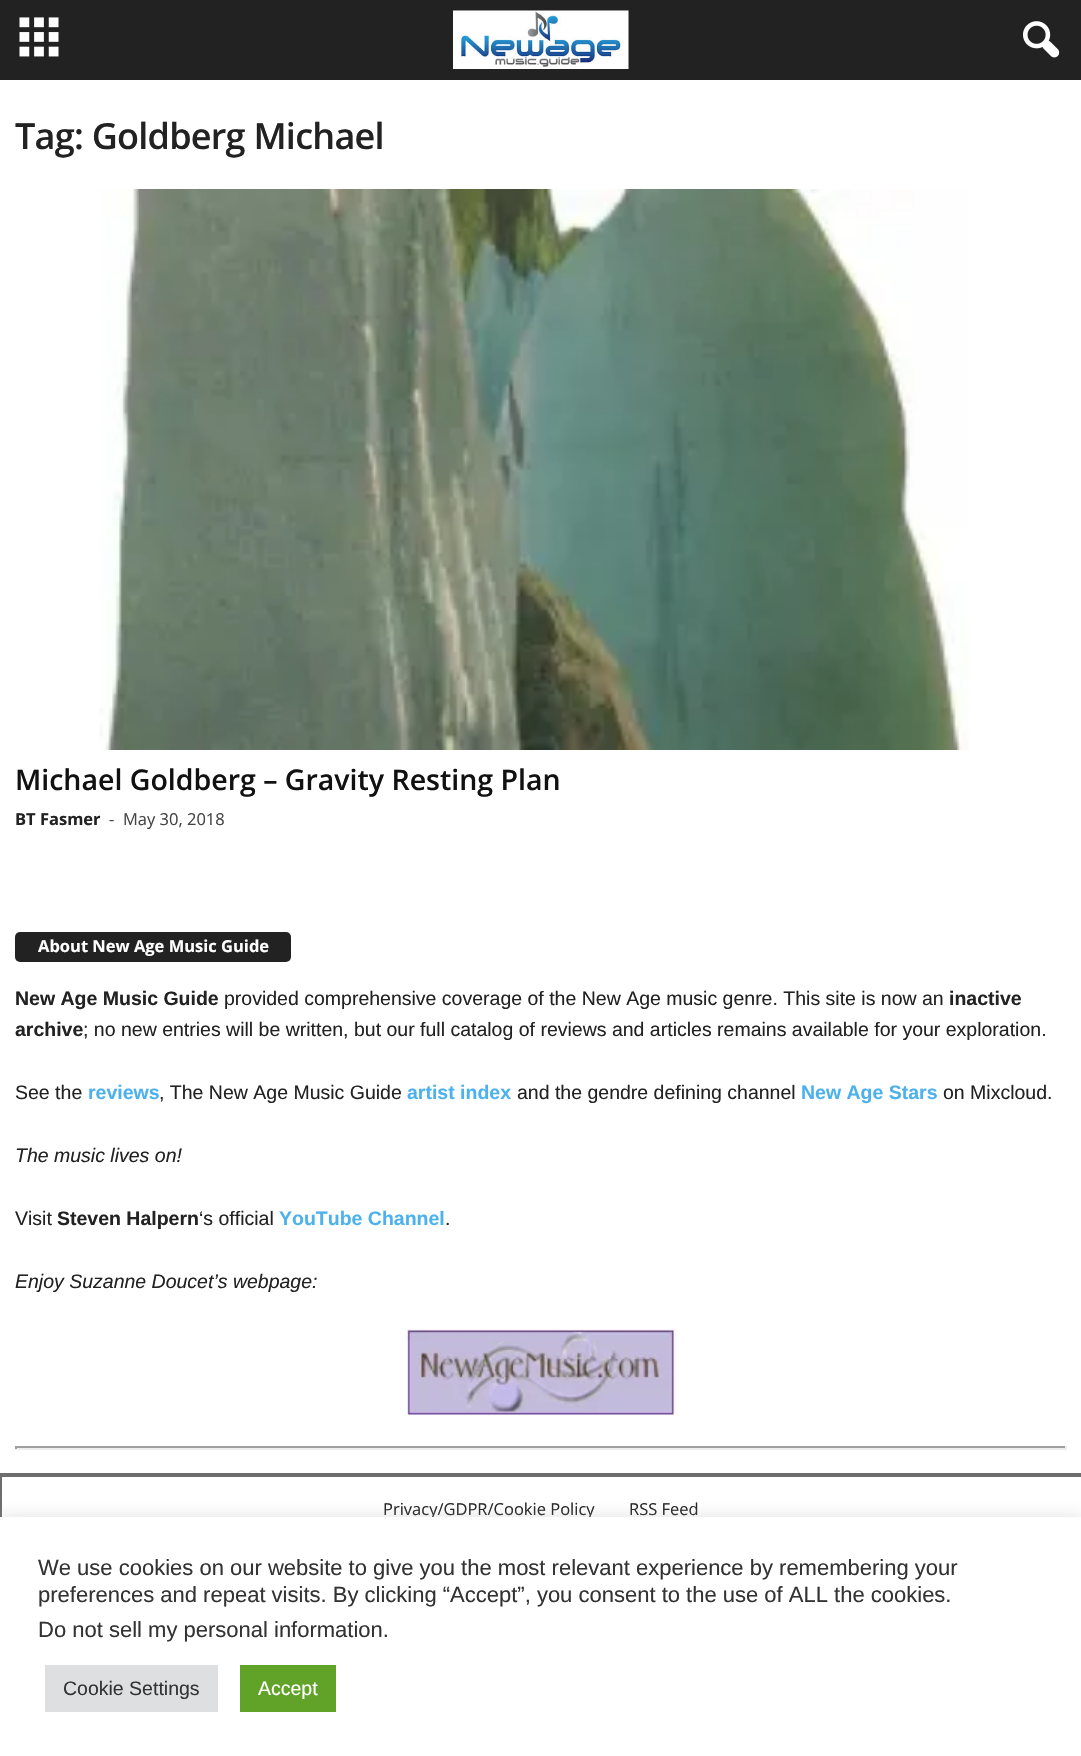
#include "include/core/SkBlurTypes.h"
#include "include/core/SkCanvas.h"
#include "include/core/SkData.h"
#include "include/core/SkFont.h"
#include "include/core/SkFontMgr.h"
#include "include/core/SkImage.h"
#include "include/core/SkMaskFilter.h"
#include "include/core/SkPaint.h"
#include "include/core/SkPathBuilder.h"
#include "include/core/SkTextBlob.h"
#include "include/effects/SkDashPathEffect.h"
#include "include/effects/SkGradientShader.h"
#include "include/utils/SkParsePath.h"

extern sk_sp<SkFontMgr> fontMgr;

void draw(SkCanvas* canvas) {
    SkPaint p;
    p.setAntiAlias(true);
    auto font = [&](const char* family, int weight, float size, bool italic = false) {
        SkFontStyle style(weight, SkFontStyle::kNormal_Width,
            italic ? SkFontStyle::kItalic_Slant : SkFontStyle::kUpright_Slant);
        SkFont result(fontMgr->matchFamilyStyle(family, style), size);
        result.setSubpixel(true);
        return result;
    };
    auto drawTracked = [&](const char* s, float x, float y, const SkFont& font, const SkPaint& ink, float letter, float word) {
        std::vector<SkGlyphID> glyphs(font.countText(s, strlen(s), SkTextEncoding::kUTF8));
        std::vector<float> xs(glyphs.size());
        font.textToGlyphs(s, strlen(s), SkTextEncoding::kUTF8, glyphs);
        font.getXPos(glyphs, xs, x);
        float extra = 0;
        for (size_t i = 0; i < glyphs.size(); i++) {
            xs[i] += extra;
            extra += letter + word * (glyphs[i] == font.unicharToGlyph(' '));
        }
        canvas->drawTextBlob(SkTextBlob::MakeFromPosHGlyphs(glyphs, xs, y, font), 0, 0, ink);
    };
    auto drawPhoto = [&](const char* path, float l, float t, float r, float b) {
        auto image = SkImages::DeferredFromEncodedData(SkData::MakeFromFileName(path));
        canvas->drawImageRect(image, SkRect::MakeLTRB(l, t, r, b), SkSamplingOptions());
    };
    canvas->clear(0xFFFFFFFF);
    p.setColor(0xFF222222);
    canvas->drawRect(SkRect::MakeLTRB(0, 0, 1081, 80), p);
    drawPhoto("media/1.png", 19, 17, 59, 57);
    drawPhoto("media/2.png", 453, 10, 629, 69);
    drawPhoto("media/3.png", 1023, 21, 1060, 58);
    auto font1 = font("Open Sans", 600, 36);
    drawTracked("Tag: Goldberg Michael", 15, 149, font1, p, -0.75f, 0);
    drawPhoto("media/4.png", 99, 189, 969, 750);
    auto font2 = font("Open Sans", 600, 28.5f);
    p.setColor(0xFF111111);
    canvas->drawString("Michael Goldberg – Gravity Resting Plan", 15, 790, font2, p);
    auto font3 = font("Open Sans", 700, 16.5f);
    p.setColor(0xFF222222);
    canvas->drawString("BT Fasmer", 15, 825, font3, p);
    auto font4 = font("Open Sans", 400, 16.5f);
    p.setColor(0xFF444444);
    canvas->drawString("-", 109, 825, font4, p);
    canvas->drawString("May 30, 2018", 123, 825, font4, p);
    p.setColor(0xFF222222);
    canvas->drawRoundRect(SkRect::MakeLTRB(15, 932, 291, 962), 5, 5, p);
    p.setColor(0xFFFFFFFF);
    canvas->drawString("About New Age Music Guide", 38, 952, font3, p);
    auto font5 = font("Liberation Sans", 700, 19.5f);
    p.setColor(0xFF222222);
    canvas->drawString("New Age Music Guide", 15, 1005, font5, p);
    auto font6 = font("Liberation Sans", 400, 19.5f);
    canvas->drawString("provided comprehensive coverage of the New Age music genre. This site is now an", 224, 1005, font6, p);
    canvas->drawString("inactive", 949, 1005, font5, p);
    canvas->drawString("archive", 15, 1036, font5, p);
    canvas->drawString("; no new entries will be written, but our full catalog of reviews and articles remains available for your exploration.", 83, 1036, font6, p);
    canvas->drawString("See the", 15, 1099, font6, p);
    p.setColor(0xFF4DB2EC);
    canvas->drawString("reviews", 88, 1099, font5, p);
    p.setColor(0xFF222222);
    canvas->drawString(", The New Age Music Guide", 159, 1099, font6, p);
    p.setColor(0xFF4DB2EC);
    canvas->drawString("artist index", 407, 1099, font5, p);
    p.setColor(0xFF222222);
    canvas->drawString("and the gendre defining channel", 517, 1099, font6, p);
    p.setColor(0xFF4DB2EC);
    canvas->drawString("New Age Stars", 801, 1099, font5, p);
    p.setColor(0xFF222222);
    canvas->drawString("on Mixcloud.", 943, 1099, font6, p);
    auto font7 = font("Liberation Sans", 400, 19.5f, true);
    canvas->drawString("The music lives on!", 15, 1162, font7, p);
    canvas->drawString("Visit", 15, 1225, font6, p);
    canvas->drawString("Steven Halpern", 57, 1225, font5, p);
    canvas->drawString("‘s official", 199, 1225, font6, p);
    p.setColor(0xFF4DB2EC);
    canvas->drawString("YouTube Channel", 279, 1225, font5, p);
    p.setColor(0xFF222222);
    canvas->drawString(".", 445, 1225, font6, p);
    canvas->drawString("Enjoy Suzanne Doucet’s webpage:", 15, 1288, font7, p);
    drawPhoto("media/5.png", 405, 1329, 678, 1415);
    {
        const struct { float l, t, r, b; SkColor color; } items[] = {
            {15, 1446, 1067, 1448, 0xFF9F9F9F},
            {1065, 1446, 1067, 1449, 0xFFEEEEEE},
            {15, 1448, 1067, 1450, 0xFFEEEEEE},
            {15, 1446, 17, 1449, 0xFF9F9F9F},
            {0, 1473, 1081, 1477, 0xFF6D6D6D},
            {0, 1476, 2, 1517, 0xFF6D6D6D},
        };
        for (auto [l, t, r, b, color] : items) {
            p.setColor(color);
            canvas->drawRect(SkRect::MakeLTRB(l, t, r, b), p);
        }
    }
    p.setColor(0xFF222222);
    canvas->drawString("Privacy/GDPR/Cookie Policy", 383, 1515, font4, p);
    canvas->drawString("RSS Feed", 629, 1515, font4, p);
    p.setColor(0x4DACABAB);
    p.setMaskFilter(SkMaskFilter::MakeBlur(kNormal_SkBlurStyle, 7.5f));
    canvas->drawRect(SkRect::MakeLTRB(0, 1515, 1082, 1755), p);
    p.setMaskFilter(nullptr);
    p.setColor(0xFFFFFFFF);
    canvas->drawRect(SkRect::MakeLTRB(0, 1517, 1081, 1756), p);
    auto font8 = font("Liberation Sans", 400, 22);
    p.setColor(0xFF333333);
    {
        const struct { const char* s; float x, y; } items[] = {
            {"We use cookies on our website to give you the most relevant experience by remembering your", 38, 1575},
            {"preferences and repeat visits. By clicking “Accept”, you consent to the use of ALL the cookies.", 38, 1602},
            {"Do not sell my personal information.", 38, 1637},
        };
        for (auto [s, x, y] : items) {
            canvas->drawString(s, x, y, font8, p);
        }
    }
    p.setColor(0xFFDEDFE0);
    canvas->drawRect(SkRect::MakeLTRB(45, 1665, 218, 1712), p);
    p.setColor(0xFF333333);
    canvas->drawString("Cookie Settings", 63, 1695, font6, p);
    p.setColor(0xFF61A229);
    canvas->drawRect(SkRect::MakeLTRB(240, 1665, 336, 1712), p);
    p.setColor(0xFFFFFFFF);
    canvas->drawString("Accept", 258, 1695, font6, p);
}
